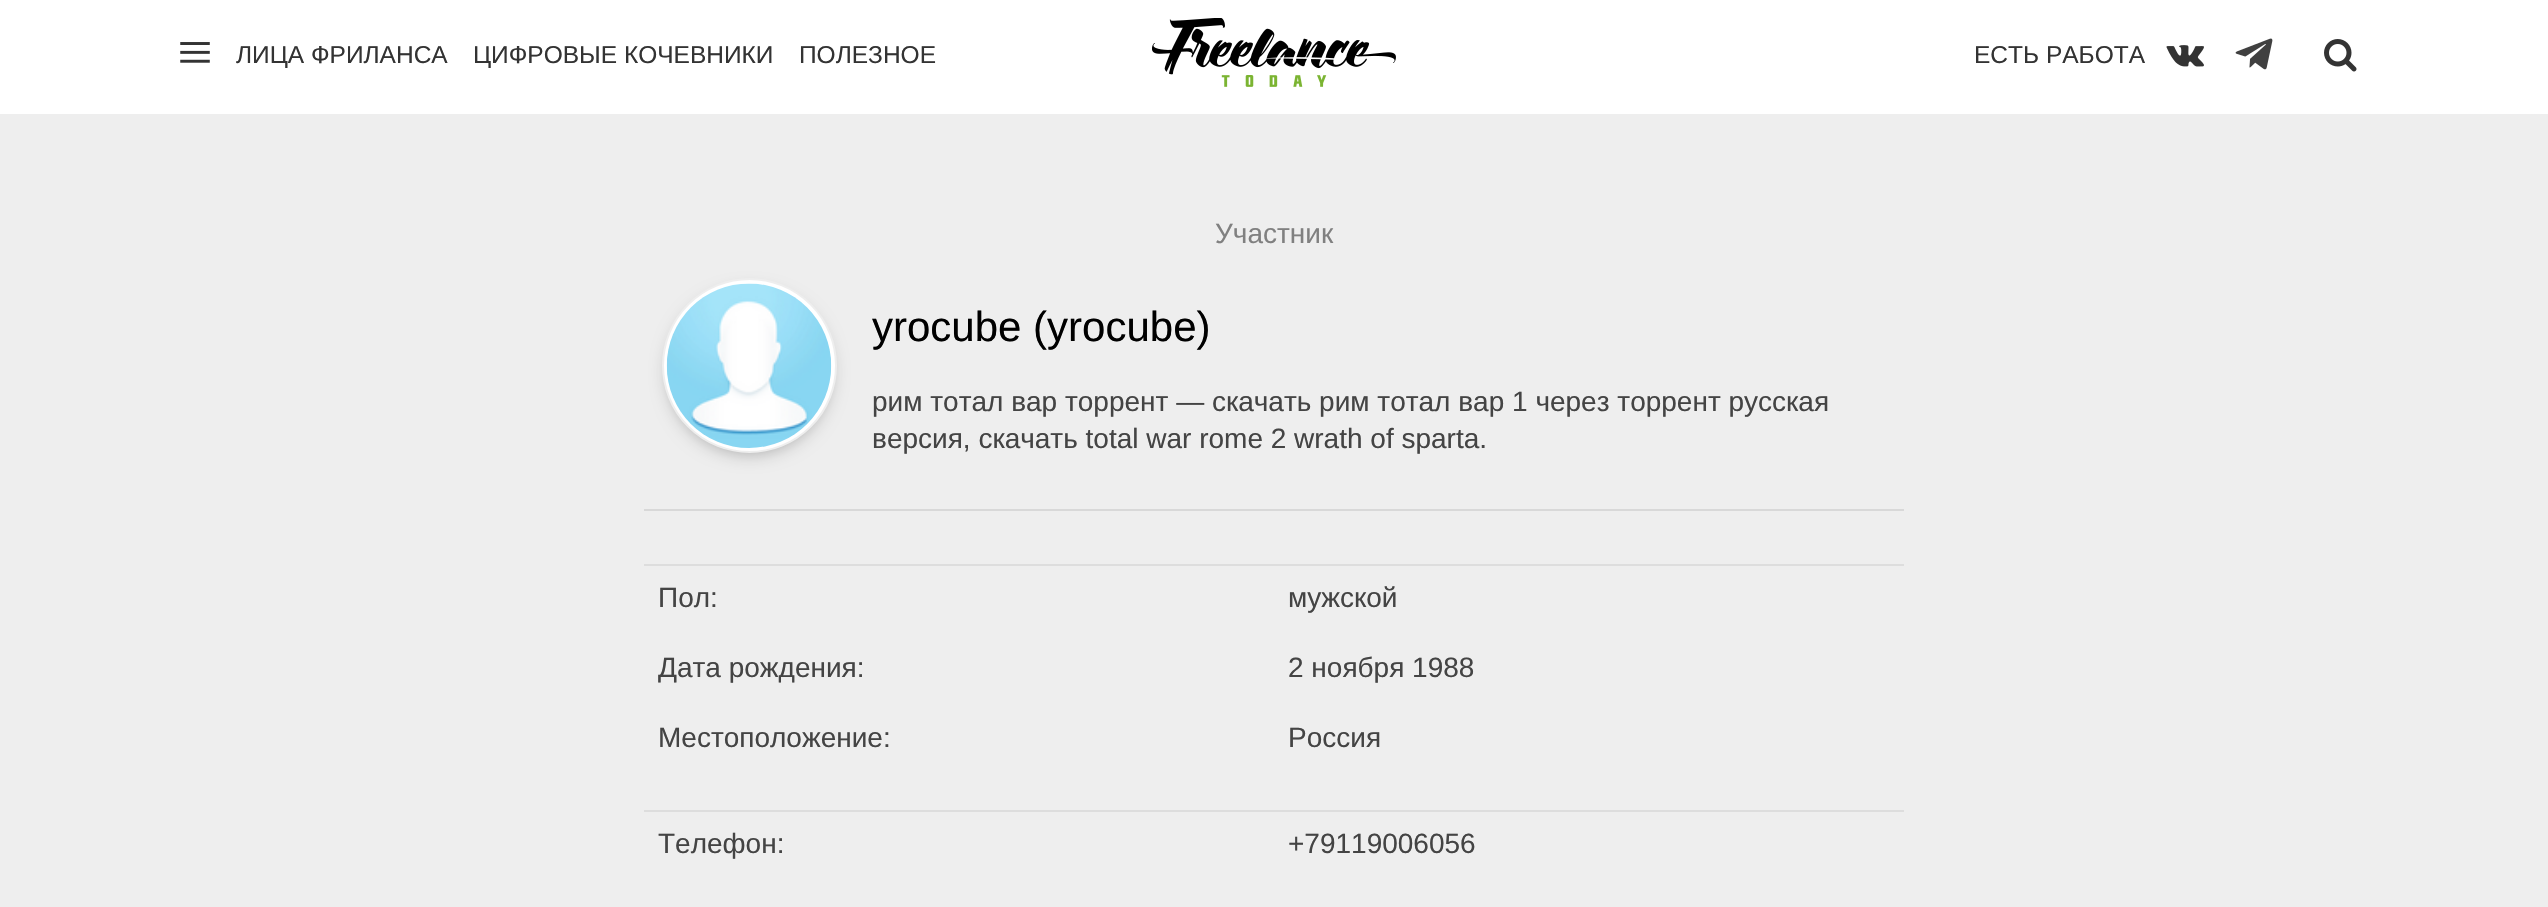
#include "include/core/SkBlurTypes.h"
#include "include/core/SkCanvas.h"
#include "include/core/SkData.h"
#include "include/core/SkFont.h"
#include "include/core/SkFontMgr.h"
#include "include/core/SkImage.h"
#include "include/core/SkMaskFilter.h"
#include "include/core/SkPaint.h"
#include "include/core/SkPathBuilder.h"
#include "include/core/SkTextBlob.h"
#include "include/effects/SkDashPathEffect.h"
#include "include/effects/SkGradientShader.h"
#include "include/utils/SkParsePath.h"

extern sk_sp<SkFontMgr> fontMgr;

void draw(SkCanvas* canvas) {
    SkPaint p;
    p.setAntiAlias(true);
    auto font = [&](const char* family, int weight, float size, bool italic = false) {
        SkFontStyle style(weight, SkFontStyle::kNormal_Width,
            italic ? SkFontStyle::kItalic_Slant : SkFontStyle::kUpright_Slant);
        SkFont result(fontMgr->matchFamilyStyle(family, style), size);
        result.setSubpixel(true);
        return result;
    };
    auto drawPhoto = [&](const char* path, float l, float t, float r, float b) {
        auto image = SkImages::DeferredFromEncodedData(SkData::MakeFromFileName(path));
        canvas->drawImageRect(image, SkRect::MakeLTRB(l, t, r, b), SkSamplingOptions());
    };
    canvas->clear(0xFFEEEEEE);
    p.setColor(0xFFFFFFFF);
    canvas->drawRect(SkRect::MakeLTRB(0, 0, 2548, 114), p);
    drawPhoto("media/1.png", 1152, 18, 1396, 87);
    drawPhoto("media/2.png", 180, 42, 210, 63);
    auto font1 = font("Liberation Sans", 400, 24.5f);
    p.setColor(0xFF333333);
    {
        const struct { const char* s; float x, y; } items[] = {
            {"ЛИЦА ФРИЛАНСА", 236, 63},
            {"ЦИФРОВЫЕ КОЧЕВНИКИ", 473, 63},
            {"ПОЛЕЗНОЕ", 799, 63},
            {"ЕСТЬ РАБОТА", 1974, 63},
        };
        for (auto [s, x, y] : items) {
            canvas->drawString(s, x, y, font1, p);
        }
    }
    drawPhoto("media/3.png", 2166, 45, 2204, 67);
    drawPhoto("media/4.png", 2235, 38, 2273, 70);
    drawPhoto("media/5.png", 2324, 39, 2357, 72);
    auto font2 = font("Liberation Sans", 400, 28);
    p.setColor(0xFF808080);
    canvas->drawString("Участник", 1215, 243, font2, p);
    p.setColor(0xFFD8D8D8);
    canvas->drawRect(SkRect::MakeLTRB(644, 509, 1904, 511), p);
    p.setColor(0x4D000000);
    p.setMaskFilter(SkMaskFilter::MakeBlur(kNormal_SkBlurStyle, 9));
    canvas->drawRoundRect(SkRect::MakeLTRB(669, 292, 830, 453), 80.5f, 80.5f, p);
    p.setMaskFilter(nullptr);
    p.setColor(0xFFFFFFFF);
    canvas->drawCircle(749.5f, 365.5f, 86.5f, p);
    p.setStyle(SkPaint::kStroke_Style);
    p.setStrokeWidth(2);
    p.setColor(0xFFEEEEEE);
    canvas->drawCircle(749.5f, 365.5f, 86.5f, p);
    drawPhoto("media/6.png", 666, 283, 832, 448);
    auto font3 = font("Liberation Sans", 400, 42);
    p.setStyle(SkPaint::kFill_Style);
    p.setColor(0xFF000000);
    canvas->drawString("yrocube (yrocube)", 872, 341, font3, p);
    p.setColor(0xFF444444);
    {
        const struct { const char* s; float x, y; } items[] = {
            {"рим тотал вар торрент — скачать рим тотал вар 1 через торрент русская", 872, 411},
            {"версия, скачать total war rome 2 wrath of sparta.", 872, 448},
            {"Пол:", 658, 607},
        };
        for (auto [s, x, y] : items) {
            canvas->drawString(s, x, y, font2, p);
        }
    }
    p.setColor(0xFFDDDDDD);
    canvas->drawRect(SkRect::MakeLTRB(644, 564, 1904, 566), p);
    p.setColor(0xFF444444);
    {
        const struct { const char* s; float x, y; } items[] = {
            {"мужской", 1288, 607},
            {"Дата рождения:", 658, 677},
            {"2 ноября 1988", 1288, 677},
            {"Местоположение:", 658, 747},
            {"Россия", 1288, 747},
            {"Телефон:", 658, 853},
        };
        for (auto [s, x, y] : items) {
            canvas->drawString(s, x, y, font2, p);
        }
    }
    p.setColor(0xFFDDDDDD);
    canvas->drawRect(SkRect::MakeLTRB(644, 810, 1904, 812), p);
    p.setColor(0xFF444444);
    canvas->drawString("+79119006056", 1288, 853, font2, p);
}
